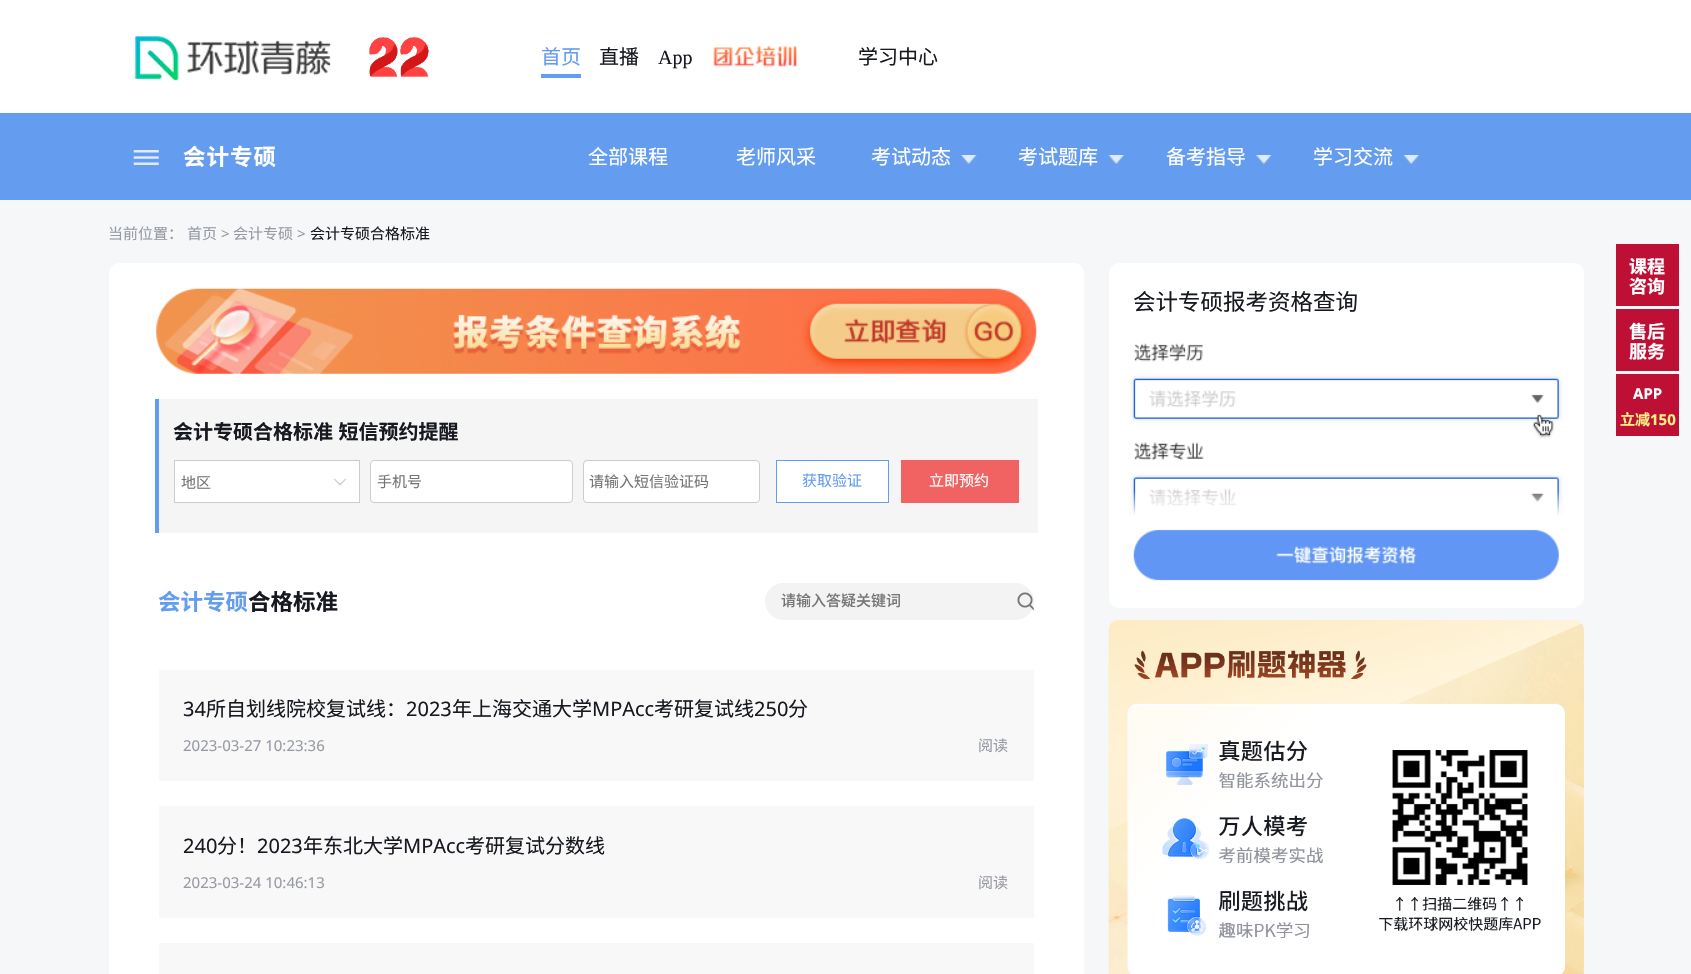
#include "include/core/SkBlurTypes.h"
#include "include/core/SkCanvas.h"
#include "include/core/SkData.h"
#include "include/core/SkFont.h"
#include "include/core/SkFontMgr.h"
#include "include/core/SkImage.h"
#include "include/core/SkMaskFilter.h"
#include "include/core/SkPaint.h"
#include "include/core/SkPathBuilder.h"
#include "include/core/SkTextBlob.h"
#include "include/effects/SkDashPathEffect.h"
#include "include/effects/SkGradientShader.h"
#include "include/utils/SkParsePath.h"

extern sk_sp<SkFontMgr> fontMgr;

void draw(SkCanvas* canvas) {
    SkPaint p;
    p.setAntiAlias(true);
    auto font = [&](const char* family, int weight, float size, bool italic = false) {
        SkFontStyle style(weight, SkFontStyle::kNormal_Width,
            italic ? SkFontStyle::kItalic_Slant : SkFontStyle::kUpright_Slant);
        SkFont result(fontMgr->matchFamilyStyle(family, style), size);
        result.setSubpixel(true);
        return result;
    };
    auto drawTracked = [&](const char* s, float x, float y, const SkFont& font, const SkPaint& ink, float letter, float word) {
        std::vector<SkGlyphID> glyphs(font.countText(s, strlen(s), SkTextEncoding::kUTF8));
        std::vector<float> xs(glyphs.size());
        font.textToGlyphs(s, strlen(s), SkTextEncoding::kUTF8, glyphs);
        font.getXPos(glyphs, xs, x);
        float extra = 0;
        for (size_t i = 0; i < glyphs.size(); i++) {
            xs[i] += extra;
            extra += letter + word * (glyphs[i] == font.unicharToGlyph(' '));
        }
        canvas->drawTextBlob(SkTextBlob::MakeFromPosHGlyphs(glyphs, xs, y, font), 0, 0, ink);
    };
    auto drawPhoto = [&](const char* path, float l, float t, float r, float b) {
        auto image = SkImages::DeferredFromEncodedData(SkData::MakeFromFileName(path));
        canvas->drawImageRect(image, SkRect::MakeLTRB(l, t, r, b), SkSamplingOptions());
    };
    canvas->clear(0xFFF5F7F9);
    p.setColor(0xFFFFFFFF);
    canvas->drawRect(SkRect::MakeLTRB(0, 0, 1691, 113), p);
    drawPhoto("media/1.png", 134, 36, 331, 81);
    drawPhoto("media/2.png", 369, 37, 429, 77);
    p.setColor(0xFF649CF0);
    canvas->drawRect(SkRect::MakeLTRB(541, 74, 581, 78), p);
    auto font1 = font("Noto Sans CJK SC", 400, 20);
    canvas->drawString("首页", 541, 64, font1, p);
    p.setColor(0xFF171920);
    canvas->drawString("直播", 599, 64, font1, p);
    auto font2 = font("Liberation Serif", 400, 20);
    canvas->drawString("App", 658, 64, font2, p);
    drawPhoto("media/3.png", 713, 46, 797, 74);
    canvas->drawString("学习中心", 858, 64, font1, p);
    p.setColor(0xFF649CF0);
    canvas->drawRect(SkRect::MakeLTRB(0, 113, 1691, 200), p);
    drawPhoto("media/4.png", 133, 150, 159, 165);
    auto font3 = font("Noto Sans CJK SC", 700, 22.5f);
    p.setColor(0xFFFFFFFF);
    drawTracked("会计专硕", 183, 165, font3, p, 1, 0);
    {
        const struct { const char* s; float x, y; } items[] = {
            {"全部课程", 588, 164},
            {"老师风采", 736, 164},
            {"考试动态", 871, 164},
        };
        for (auto [s, x, y] : items) {
            canvas->drawString(s, x, y, font1, p);
        }
    }
    drawPhoto("media/5.png", 961, 155, 977, 164);
    canvas->drawString("考试题库", 1018, 164, font1, p);
    drawPhoto("media/6.png", 1108, 155, 1124, 164);
    canvas->drawString("备考指导", 1166, 164, font1, p);
    drawPhoto("media/5.png", 1256, 155, 1272, 164);
    canvas->drawString("学习交流", 1313, 164, font1, p);
    drawPhoto("media/6.png", 1403, 155, 1419, 164);
    auto font4 = font("Noto Sans CJK SC", 400, 15);
    p.setColor(0xFF979AA4);
    canvas->drawString("当前位置：", 108, 239, font4, p);
    canvas->drawString("首页", 187, 239, font4, p);
    auto font5 = font("Noto Sans", 400, 15);
    canvas->drawString(">", 221, 239, font5, p);
    canvas->drawString("会计专硕", 233, 239, font4, p);
    canvas->drawString(">", 297, 239, font5, p);
    p.setColor(0xFF171920);
    canvas->drawString("会计专硕合格标准", 310, 239, font4, p);
    p.setColor(0xFFFFFFFF);
    canvas->drawRoundRect(SkRect::MakeLTRB(1109, 263, 1584, 608), 10, 10, p);
    auto font6 = font("Noto Sans CJK SC", 400, 22.5f);
    p.setColor(0xFF171920);
    canvas->drawString("会计专硕报考资格查询", 1133, 310, font6, p);
    drawPhoto("media/7.png", 1114, 343, 1583, 607);
    drawPhoto("media/8.png", 1108, 620, 1584, 974);
    drawPhoto("media/9.png", 1108, 620, 1584, 974);
    p.setColor(0xFFFFFFFF);
    canvas->drawRoundRect(SkRect::MakeLTRB(109, 263, 1084, 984), 10, 10, p);
    drawPhoto("media/10.png", 156, 288, 1037, 374);
    p.setColor(0xFFF5F5F5);
    canvas->drawRect(SkRect::MakeLTRB(159, 399, 1038, 533), p);
    p.setColor(0xFF649CF0);
    canvas->drawRect(SkRect::MakeLTRB(155, 399, 159, 533), p);
    auto font7 = font("Noto Sans CJK SC", 700, 20);
    p.setColor(0xFF171920);
    drawTracked("会计专硕合格标准 短信预约提醒", 173, 439, font7, p, 0, 1);
    p.setColor(0xFFFFFFFF);
    canvas->drawRect(SkRect::MakeLTRB(174.5f, 460.5f, 359.5f, 502.5f), p);
    p.setStyle(SkPaint::kStroke_Style);
    p.setStrokeWidth(1);
    p.setColor(0xFFCCCCCC);
    canvas->drawRect(SkRect::MakeLTRB(174.5f, 460.5f, 359.5f, 502.5f), p);
    p.setStyle(SkPaint::kFill_Style);
    p.setColor(0xFF757575);
    canvas->drawString("地区", 181, 488, font4, p);
    p.setColor(0xFFCCCCCC);
    canvas->drawPath(SkPathBuilder().moveTo(345.5f, 478.5f).lineTo(346, 479.5f).lineTo(340, 485.5f).lineTo(339, 484.5f).close().detach(), p);
    canvas->drawPath(SkPathBuilder().moveTo(334.5f, 478.5f).lineTo(341, 484.5f).lineTo(340, 485.5f).lineTo(334, 479.5f).close().detach(), p);
    p.setColor(0xFFFFFFFF);
    canvas->drawRoundRect(SkRect::MakeLTRB(370.5f, 460.5f, 572.5f, 502.5f), 3.5f, 3.5f, p);
    p.setStyle(SkPaint::kStroke_Style);
    p.setColor(0xFFCCCCCC);
    canvas->drawRoundRect(SkRect::MakeLTRB(370.5f, 460.5f, 572.5f, 502.5f), 3.5f, 3.5f, p);
    p.setStyle(SkPaint::kFill_Style);
    p.setColor(0xFF757575);
    canvas->drawString("手机号", 377, 487, font4, p);
    p.setColor(0xFFFFFFFF);
    canvas->drawRoundRect(SkRect::MakeLTRB(583.5f, 460.5f, 759.5f, 502.5f), 3.5f, 3.5f, p);
    p.setStyle(SkPaint::kStroke_Style);
    p.setColor(0xFFCCCCCC);
    canvas->drawRoundRect(SkRect::MakeLTRB(583.5f, 460.5f, 759.5f, 502.5f), 3.5f, 3.5f, p);
    p.setStyle(SkPaint::kFill_Style);
    p.setColor(0xFF757575);
    canvas->drawString("请输入短信验证码", 589, 487, font4, p);
    p.setColor(0xFFFFFFFF);
    canvas->drawRect(SkRect::MakeLTRB(776.5f, 460.5f, 888.5f, 502.5f), p);
    p.setStyle(SkPaint::kStroke_Style);
    p.setColor(0xFF649CF0);
    canvas->drawRect(SkRect::MakeLTRB(776.5f, 460.5f, 888.5f, 502.5f), p);
    p.setStyle(SkPaint::kFill_Style);
    canvas->drawString("获取验证", 802, 486, font4, p);
    p.setColor(0xFFF16262);
    canvas->drawRect(SkRect::MakeLTRB(901, 460, 1019, 503), p);
    p.setColor(0xFFFFFFFF);
    canvas->drawString("立即预约", 929, 486, font4, p);
    p.setColor(0xFF649CF0);
    canvas->drawString("会计专硕", 158, 610, font3, p);
    p.setColor(0xFF171920);
    canvas->drawString("合格标准", 248, 610, font3, p);
    p.setColor(0xFFF3F3F4);
    canvas->drawRoundRect(SkRect::MakeLTRB(765.5f, 583.5f, 1033.5f, 619.5f), 18, 18, p);
    p.setStyle(SkPaint::kStroke_Style);
    canvas->drawRoundRect(SkRect::MakeLTRB(765.5f, 583.5f, 1033.5f, 619.5f), 18, 18, p);
    auto font8 = font("Noto Sans CJK SC", 500, 15);
    p.setStyle(SkPaint::kFill_Style);
    p.setColor(0xFF757575);
    canvas->drawString("请输入答疑关键词", 781, 606, font8, p);
    drawPhoto("media/11.png", 1017, 592, 1034, 611);
    p.setColor(0xFFF8F8F8);
    canvas->drawRect(SkRect::MakeLTRB(159, 670, 1034, 781), p);
    auto font9 = font("Noto Sans", 400, 20);
    p.setColor(0xFF171920);
    canvas->drawString("34", 183, 716, font9, p);
    canvas->drawString("所自划线院校复试线：", 206, 716, font1, p);
    canvas->drawString("2023", 406, 716, font9, p);
    canvas->drawString("年上海交通大学", 452, 716, font1, p);
    canvas->drawString("MPAcc", 592, 716, font9, p);
    canvas->drawString("考研复试线", 654, 716, font1, p);
    canvas->drawString("250", 754, 716, font9, p);
    canvas->drawString("分", 788, 716, font1, p);
    p.setColor(0xFF979AA4);
    canvas->drawString("2023-03-27 10:23:36", 183, 751, font5, p);
    canvas->drawString("阅读", 978, 751, font4, p);
    p.setColor(0xFFF8F8F8);
    canvas->drawRect(SkRect::MakeLTRB(159, 806, 1034, 918), p);
    p.setColor(0xFF171920);
    canvas->drawString("240", 183, 853, font9, p);
    canvas->drawString("分！", 217, 853, font1, p);
    canvas->drawString("2023", 257, 853, font9, p);
    canvas->drawString("年东北大学", 303, 853, font1, p);
    canvas->drawString("MPAcc", 403, 853, font9, p);
    canvas->drawString("考研复试分数线", 465, 853, font1, p);
    p.setColor(0xFF979AA4);
    canvas->drawString("2023-03-24 10:46:13", 183, 888, font5, p);
    canvas->drawString("阅读", 978, 888, font4, p);
    p.setColor(0xFFF8F8F8);
    canvas->drawRect(SkRect::MakeLTRB(159, 943, 1034, 974), p);
    p.setColor(0xFFBE0F34);
    canvas->drawRect(SkRect::MakeLTRB(1616, 244, 1679, 306), p);
    auto font10 = font("Noto Sans CJK SC", 700, 18);
    p.setColor(0xFFFFFFFF);
    canvas->drawString("课程", 1629, 273, font10, p);
    canvas->drawString("咨询", 1629, 293, font10, p);
    p.setColor(0xFFBE0F34);
    canvas->drawRect(SkRect::MakeLTRB(1616, 309, 1679, 371), p);
    p.setColor(0xFFFFFFFF);
    canvas->drawString("售后", 1629, 338, font10, p);
    canvas->drawString("服务", 1629, 358, font10, p);
    p.setColor(0xFFBE0F34);
    canvas->drawRect(SkRect::MakeLTRB(1616, 374, 1679, 436), p);
    auto font11 = font("Noto Sans", 700, 15);
    p.setColor(0xFFFFFFFF);
    canvas->drawString("APP", 1633, 399, font11, p);
    auto font12 = font("Noto Sans CJK SC", 700, 15);
    p.setColor(0xFFF9F186);
    canvas->drawString("立减", 1620, 425, font12, p);
    canvas->drawString("150", 1650, 425, font11, p);
}
